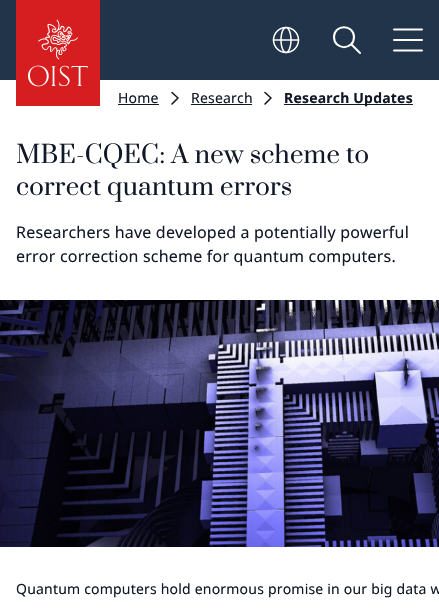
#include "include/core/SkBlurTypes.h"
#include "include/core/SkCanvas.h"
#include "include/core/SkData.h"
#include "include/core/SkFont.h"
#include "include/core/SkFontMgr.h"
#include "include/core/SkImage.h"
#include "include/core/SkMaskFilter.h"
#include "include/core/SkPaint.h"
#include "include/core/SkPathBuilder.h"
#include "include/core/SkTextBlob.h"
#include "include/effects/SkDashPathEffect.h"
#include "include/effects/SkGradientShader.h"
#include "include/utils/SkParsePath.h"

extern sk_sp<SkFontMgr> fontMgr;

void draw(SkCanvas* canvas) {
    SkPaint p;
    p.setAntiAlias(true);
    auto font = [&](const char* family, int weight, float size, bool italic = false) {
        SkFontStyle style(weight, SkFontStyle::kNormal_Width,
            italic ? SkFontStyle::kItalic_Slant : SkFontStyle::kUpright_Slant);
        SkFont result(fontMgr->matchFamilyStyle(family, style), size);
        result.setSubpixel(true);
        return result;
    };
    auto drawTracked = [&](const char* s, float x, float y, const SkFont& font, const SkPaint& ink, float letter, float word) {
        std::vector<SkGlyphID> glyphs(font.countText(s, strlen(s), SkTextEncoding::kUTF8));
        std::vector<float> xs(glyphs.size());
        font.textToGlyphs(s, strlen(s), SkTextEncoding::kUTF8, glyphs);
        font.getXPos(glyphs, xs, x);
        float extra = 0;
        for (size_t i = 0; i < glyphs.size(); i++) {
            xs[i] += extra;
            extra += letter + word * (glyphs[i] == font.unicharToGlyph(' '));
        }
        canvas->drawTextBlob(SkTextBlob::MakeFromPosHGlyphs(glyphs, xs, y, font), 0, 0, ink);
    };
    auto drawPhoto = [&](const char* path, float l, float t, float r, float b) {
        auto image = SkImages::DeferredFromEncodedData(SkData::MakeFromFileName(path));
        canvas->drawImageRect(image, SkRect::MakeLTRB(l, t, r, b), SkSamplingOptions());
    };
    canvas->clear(0xFFFFFFFF);
    p.setColor(0xFF213449);
    canvas->drawRect(SkRect::MakeLTRB(0, 0, 439, 80), p);
    drawPhoto("media/1.png", 16, 0, 100, 106);
    drawPhoto("media/2.png", 272, 26, 300, 54);
    p.setStyle(SkPaint::kStroke_Style);
    p.setStrokeWidth(2);
    p.setStrokeCap(SkPaint::kRound_Cap);
    p.setStrokeJoin(SkPaint::kRound_Join);
    p.setColor(0xFFFFFFFF);
    canvas->drawPath(SkPathBuilder().moveTo(360, 53).lineTo(351.5f, 44.5f).close().moveTo(354, 37).cubicTo(354, 50.5f, 334, 50.5f, 334, 37).cubicTo(334, 24, 354, 24, 354, 37).close().detach(), p);
    canvas->drawPath(SkPathBuilder().moveTo(394, 50.5f).lineTo(422, 50.5f).moveTo(394, 29.5f).lineTo(422, 29.5f).close().moveTo(394, 40).lineTo(422, 40).close().detach(), p);
    auto font1 = font("Noto Sans", 400, 14);
    p.setStyle(SkPaint::kFill_Style);
    p.setColor(0xFF111827);
    drawTracked("Home", 118, 103, font1, p, 0.2f, 0);
    canvas->drawRect(SkRect::MakeLTRB(118, 104, 159, 105), p);
    p.setStyle(SkPaint::kStroke_Style);
    p.setStrokeWidth(1.6f);
    canvas->drawPath(SkPathBuilder().moveTo(172, 92.5f).lineTo(178, 98).lineTo(172, 104).detach(), p);
    p.setStyle(SkPaint::kFill_Style);
    drawTracked("Research", 191, 103, font1, p, 0.2f, 0);
    canvas->drawRect(SkRect::MakeLTRB(191, 104, 252, 105), p);
    p.setStyle(SkPaint::kStroke_Style);
    canvas->drawPath(SkPathBuilder().moveTo(265, 92.5f).lineTo(271, 98).lineTo(265, 104).detach(), p);
    p.setStyle(SkPaint::kFill_Style);
    canvas->drawRect(SkRect::MakeLTRB(284, 104, 413, 105), p);
    auto font2 = font("Noto Sans", 700, 14);
    drawTracked("Research Updates", 284, 103, font2, p, 0.2f, 0);
    auto font3 = font("Prata", 400, 24);
    drawTracked("MBE-CQEC: A new scheme to", 16, 163, font3, p, 0.2f, 0);
    drawTracked("correct quantum errors", 16, 195, font3, p, 0.2f, 0);
    auto font4 = font("Noto Sans", 400, 16);
    drawTracked("Researchers have developed a potentially powerful", 16, 238, font4, p, 0.2f, 0);
    drawTracked("error correction scheme for quantum computers.", 16, 262, font4, p, 0.2f, 0);
    drawPhoto("media/3.png", 0, 300, 439, 547);
    drawTracked("Quantum computers hold enormous promise in our big data w", 16, 594, font1, p, 0.2f, 0);
}
